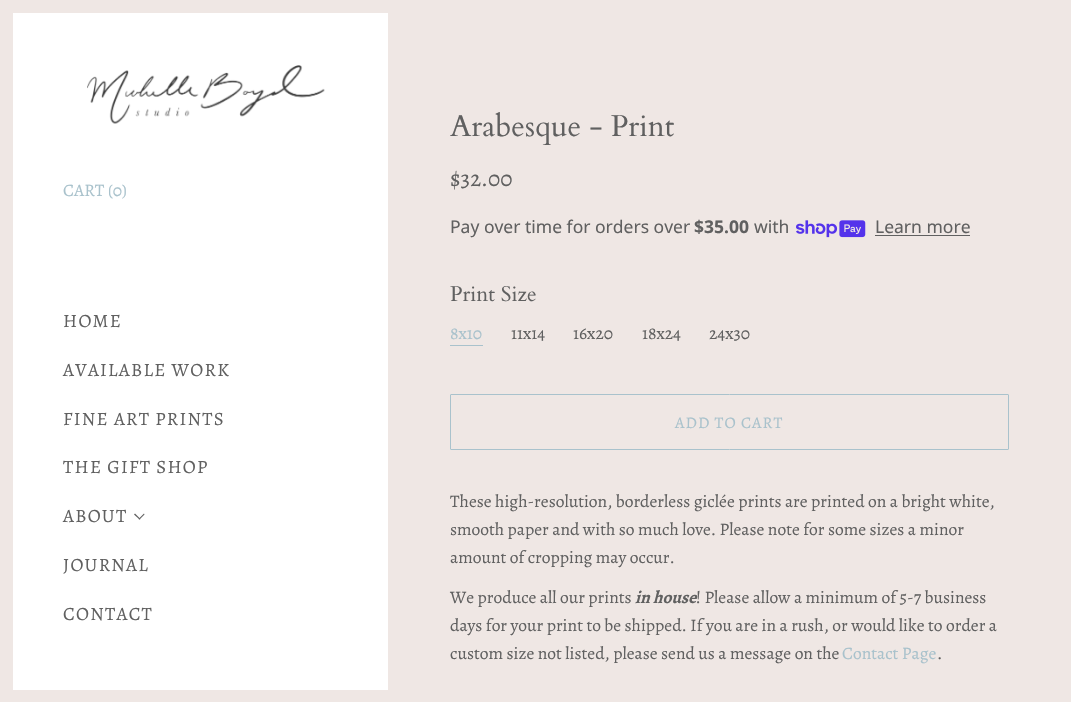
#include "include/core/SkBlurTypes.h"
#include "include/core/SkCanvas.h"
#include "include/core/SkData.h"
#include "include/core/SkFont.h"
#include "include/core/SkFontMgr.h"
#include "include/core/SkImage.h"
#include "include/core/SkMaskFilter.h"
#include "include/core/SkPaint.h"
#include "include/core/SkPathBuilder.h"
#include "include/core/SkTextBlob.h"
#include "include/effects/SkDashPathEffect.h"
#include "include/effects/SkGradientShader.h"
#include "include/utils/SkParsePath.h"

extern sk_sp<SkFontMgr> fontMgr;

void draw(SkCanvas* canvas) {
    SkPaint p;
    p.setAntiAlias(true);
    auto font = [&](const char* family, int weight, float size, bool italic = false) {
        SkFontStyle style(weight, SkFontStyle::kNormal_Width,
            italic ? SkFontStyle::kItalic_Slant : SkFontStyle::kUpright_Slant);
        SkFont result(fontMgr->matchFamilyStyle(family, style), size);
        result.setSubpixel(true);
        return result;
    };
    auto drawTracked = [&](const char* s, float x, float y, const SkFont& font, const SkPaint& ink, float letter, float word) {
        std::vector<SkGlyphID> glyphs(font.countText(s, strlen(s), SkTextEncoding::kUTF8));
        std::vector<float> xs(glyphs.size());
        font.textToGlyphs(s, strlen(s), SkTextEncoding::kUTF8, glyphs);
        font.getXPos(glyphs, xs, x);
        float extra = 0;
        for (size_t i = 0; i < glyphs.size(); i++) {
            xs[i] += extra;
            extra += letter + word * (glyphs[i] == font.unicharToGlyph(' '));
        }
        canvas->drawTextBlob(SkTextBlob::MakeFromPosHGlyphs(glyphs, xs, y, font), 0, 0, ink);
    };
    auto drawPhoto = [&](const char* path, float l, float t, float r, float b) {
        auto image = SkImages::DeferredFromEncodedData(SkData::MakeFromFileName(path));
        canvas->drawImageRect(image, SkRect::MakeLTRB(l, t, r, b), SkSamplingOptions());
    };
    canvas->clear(0xFFEFE7E4);
    p.setColor(0xFFFFFFFF);
    canvas->drawRect(SkRect::MakeLTRB(13, 13, 388, 690), p);
    drawPhoto("media/1.png", 87, 65, 325, 124);
    auto font1 = font("Alegreya", 400, 17.5f);
    p.setColor(0xFFA9C2CC);
    canvas->drawString("CART (0)", 63, 196, font1, p);
    auto font2 = font("Alegreya", 400, 18.75f);
    p.setColor(0xFF606060);
    {
        const struct { const char* s; float x, y; } items[] = {
            {"HOME", 63, 327},
            {"AVAILABLE WORK", 63, 376},
            {"FINE ART PRINTS", 63, 425},
            {"THE GIFT SHOP", 63, 473},
            {"ABOUT", 63, 522},
        };
        for (auto [s, x, y] : items) {
            drawTracked(s, x, y, font2, p, 1.25f, 0);
        }
    }
    canvas->drawPath(SkPathBuilder().moveTo(144.5f, 514.5f).lineTo(139.5f, 519.5f).lineTo(138.5f, 519).lineTo(144, 513.5f).close().detach(), p);
    canvas->drawPath(SkPathBuilder().moveTo(140.5f, 519).lineTo(139.5f, 519.5f).lineTo(134, 514.5f).lineTo(135, 513.5f).close().detach(), p);
    drawTracked("JOURNAL", 63, 571, font2, p, 1.25f, 0);
    drawTracked("CONTACT", 63, 620, font2, p, 1.25f, 0);
    auto font3 = font("Cardo", 400, 30);
    canvas->drawString("Arabesque - Print", 450, 136, font3, p);
    auto font4 = font("Alegreya", 400, 23);
    canvas->drawString("$32.00", 450, 186, font4, p);
    auto font5 = font("Noto Sans", 400, 17.5f);
    canvas->drawString("Pay over time for orders over", 450, 233, font5, p);
    auto font6 = font("Noto Sans", 700, 17.5f);
    canvas->drawString("$35.00", 694, 233, font6, p);
    canvas->drawString("with", 754, 233, font5, p);
    drawPhoto("media/2.png", 796, 220, 866, 238);
    canvas->drawString("Learn more", 875, 233, font5, p);
    canvas->drawRect(SkRect::MakeLTRB(875, 235, 970, 236), p);
    auto font7 = font("Cardo", 400, 21.25f);
    canvas->drawString("Print Size", 450, 301, font7, p);
    p.setColor(0xFFA9C2CC);
    canvas->drawString("8x10", 450, 339, font1, p);
    canvas->drawRect(SkRect::MakeLTRB(450, 345, 483, 346), p);
    p.setColor(0xFF606060);
    {
        const struct { const char* s; float x, y; } items[] = {
            {"11x14", 511, 339},
            {"16x20", 573, 339},
            {"18x24", 642, 339},
            {"24x30", 709, 339},
        };
        for (auto [s, x, y] : items) {
            canvas->drawString(s, x, y, font1, p);
        }
    }
    p.setStyle(SkPaint::kStroke_Style);
    p.setStrokeWidth(1);
    p.setColor(0xFFA9C2CC);
    canvas->drawRoundRect(SkRect::MakeLTRB(450.5f, 394.5f, 1008.5f, 449.5f), 0.5f, 0.5f, p);
    auto font8 = font("Alegreya", 400, 16.25f);
    p.setStyle(SkPaint::kFill_Style);
    drawTracked("ADD TO CART", 675, 428, font8, p, 1, 0);
    p.setColor(0xFF606060);
    {
        const struct { const char* s; float x, y; } items[] = {
            {"These high-resolution, borderless giclée prints are printed on a bright white,", 450, 507},
            {"smooth paper and with so much love. Please note for some sizes a minor", 450, 535},
            {"amount of cropping may occur.", 450, 563},
            {"We produce all our prints", 450, 603},
        };
        for (auto [s, x, y] : items) {
            canvas->drawString(s, x, y, font1, p);
        }
    }
    auto font9 = font("Alegreya", 700, 17.5f, true);
    canvas->drawString("in house", 635, 603, font9, p);
    {
        const struct { const char* s; float x, y; } items[] = {
            {"! Please allow a minimum of 5-7 business", 696, 603},
            {"days for your print to be shipped. If you are in a rush, or would like to order a", 450, 631},
            {"custom size not listed, please send us a message on the", 450, 659},
        };
        for (auto [s, x, y] : items) {
            canvas->drawString(s, x, y, font1, p);
        }
    }
    p.setColor(0xFFA9C2CC);
    canvas->drawString("Contact Page", 842, 659, font1, p);
    p.setColor(0xFF606060);
    canvas->drawString(".", 937, 659, font1, p);
}
